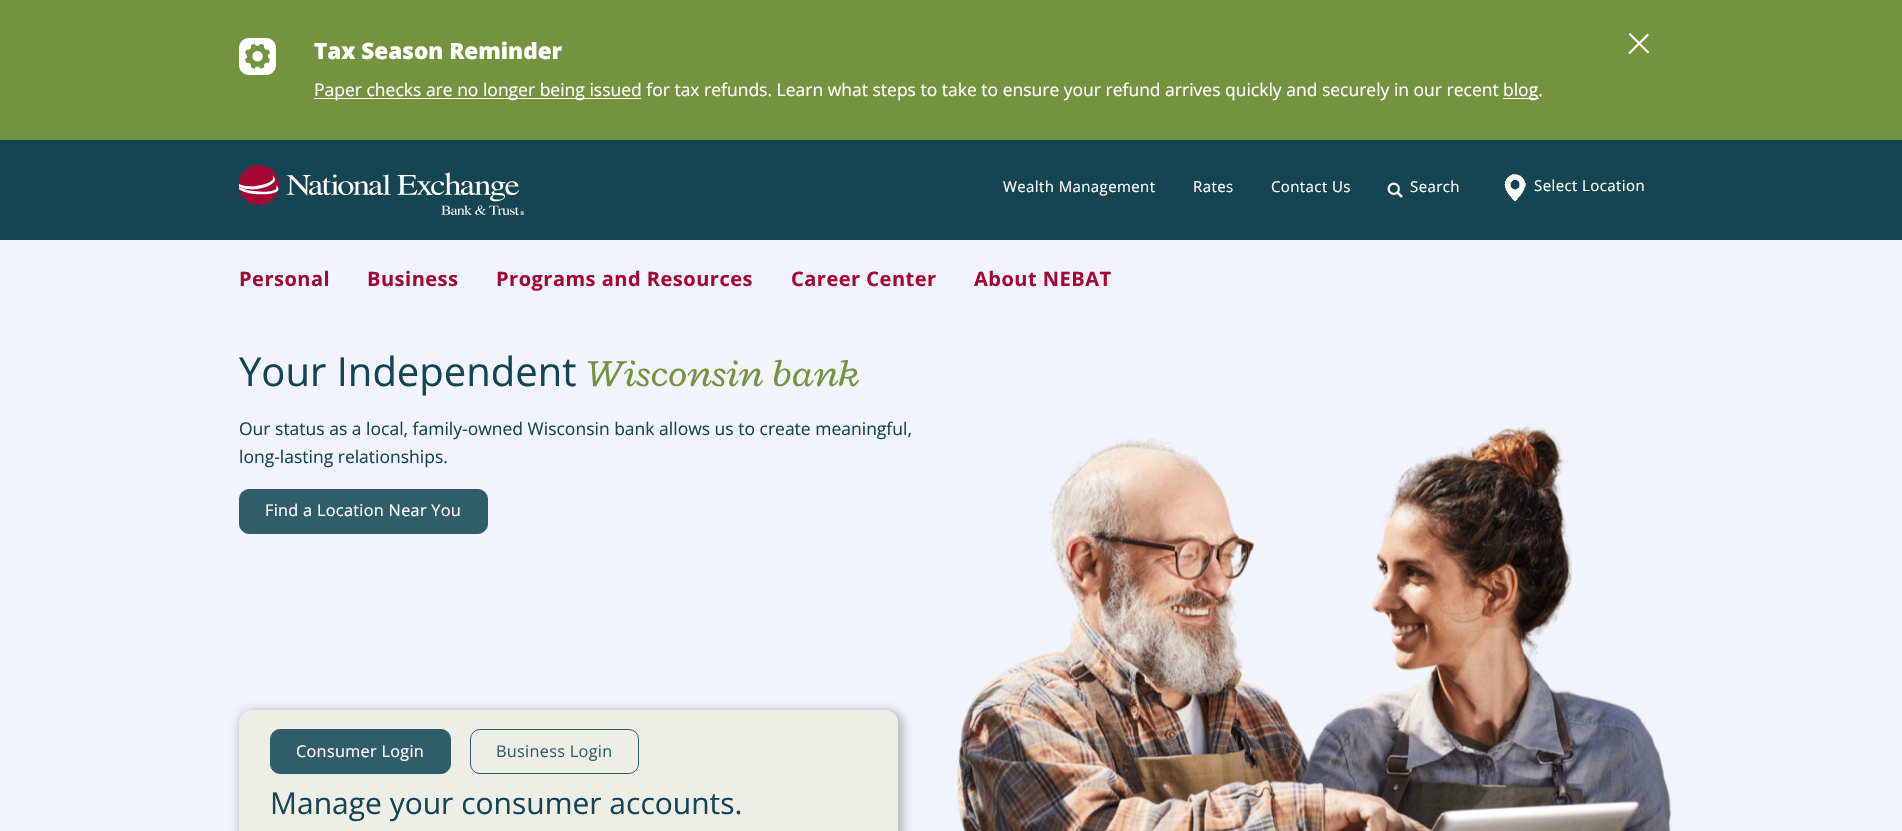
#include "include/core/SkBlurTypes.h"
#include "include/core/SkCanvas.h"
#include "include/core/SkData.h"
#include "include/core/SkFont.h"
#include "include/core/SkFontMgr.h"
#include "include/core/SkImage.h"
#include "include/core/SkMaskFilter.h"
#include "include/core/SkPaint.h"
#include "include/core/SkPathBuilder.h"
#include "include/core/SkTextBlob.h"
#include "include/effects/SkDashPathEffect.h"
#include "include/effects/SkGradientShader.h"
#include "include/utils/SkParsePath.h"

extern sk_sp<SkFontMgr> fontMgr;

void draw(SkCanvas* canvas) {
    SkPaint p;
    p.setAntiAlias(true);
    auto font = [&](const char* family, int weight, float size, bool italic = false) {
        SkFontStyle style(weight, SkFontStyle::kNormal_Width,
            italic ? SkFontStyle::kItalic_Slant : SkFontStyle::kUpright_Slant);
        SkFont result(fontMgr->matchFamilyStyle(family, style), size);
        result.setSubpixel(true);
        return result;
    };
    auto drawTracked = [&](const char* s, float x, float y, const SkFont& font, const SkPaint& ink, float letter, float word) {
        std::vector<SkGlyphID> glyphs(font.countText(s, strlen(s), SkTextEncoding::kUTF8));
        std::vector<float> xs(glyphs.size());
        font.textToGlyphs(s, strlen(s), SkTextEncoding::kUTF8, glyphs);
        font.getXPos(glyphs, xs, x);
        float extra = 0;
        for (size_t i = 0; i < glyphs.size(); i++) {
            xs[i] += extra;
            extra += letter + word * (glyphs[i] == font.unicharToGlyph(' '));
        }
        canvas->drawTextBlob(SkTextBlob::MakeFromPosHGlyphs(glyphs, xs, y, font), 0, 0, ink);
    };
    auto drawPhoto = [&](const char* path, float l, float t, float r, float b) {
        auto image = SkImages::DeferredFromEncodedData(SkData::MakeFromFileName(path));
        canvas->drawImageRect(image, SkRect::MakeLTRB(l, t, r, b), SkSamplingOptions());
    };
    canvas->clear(0xFF74933F);
    drawPhoto("media/1.png", 239, 38, 276, 75);
    auto font1 = font("Open Sans", 800, 22.5f);
    p.setColor(0xFFFFFFFF);
    canvas->drawString("Tax Season Reminder", 314, 59, font1, p);
    canvas->drawRect(SkRect::MakeLTRB(314, 98, 641, 99), p);
    auto font2 = font("Open Sans", 400, 17.5f);
    canvas->drawString("Paper checks are no longer being issued for tax refunds. Learn what steps to take to ensure your refund arrives quickly and securely in our recent", 314, 96, font2, p);
    canvas->drawRect(SkRect::MakeLTRB(1503, 98, 1539, 99), p);
    canvas->drawString("blog.", 1503, 96, font2, p);
    drawPhoto("media/2.png", 1628, 33, 1650, 55);
    p.setColor(0xFF154552);
    canvas->drawRect(SkRect::MakeLTRB(0, 140, 1902, 240), p);
    drawPhoto("media/3.png", 239, 165, 524, 215);
    auto font3 = font("Open Sans", 400, 15);
    p.setColor(0xFFFFFFFF);
    {
        const struct { const char* s; float x, y; } items[] = {
            {"Wealth Management", 1003, 192},
            {"Rates", 1193, 192},
            {"Contact Us", 1271, 192},
        };
        for (auto [s, x, y] : items) {
            drawTracked(s, x, y, font3, p, 0.4f, 0);
        }
    }
    drawPhoto("media/4.png", 1387, 182, 1403, 198);
    drawTracked("Search", 1410, 192, font3, p, 0.4f, 0);
    drawPhoto("media/5.png", 1504, 174, 1526, 202);
    drawTracked("Select Location", 1534, 191, font3, p, 0.4f, 0);
    {
        const SkColor colors[] = {0xFFF1F4FC, 0xFFF1F4FC, 0xFF154552};
        const float stops[] = {0, 0.79f, 0.79f};
        const SkPoint ends[] = {{951, 240}, {951, 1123}};
        p.setShader(SkGradientShader::MakeLinear(ends, colors, stops, 3, SkTileMode::kClamp));
        p.setAlpha(255);
    }
    canvas->drawRect(SkRect::MakeLTRB(0, 240, 1902, 831), p);
    auto font4 = font("Open Sans", 700, 20);
    p.setShader(nullptr);
    p.setColor(0xFFA50834);
    {
        const struct { const char* s; float x, y; } items[] = {
            {"Personal", 239, 286},
            {"Business", 367, 286},
            {"Programs and Resources", 496, 286},
            {"Career Center", 791, 286},
            {"About NEBAT", 974, 286},
        };
        for (auto [s, x, y] : items) {
            drawTracked(s, x, y, font4, p, 0.5f, 0);
        }
    }
    drawPhoto("media/6.png", 957, 425, 1671, 831);
    auto font5 = font("Open Sans", 400, 40);
    p.setColor(0xFF154552);
    canvas->drawString("Your Independent", 239, 386, font5, p);
    auto font6 = font("Radley", 400, 40, true);
    p.setColor(0xFF74933F);
    canvas->drawString("Wisconsin bank", 587, 386, font6, p);
    p.setColor(0xFF154552);
    canvas->drawString("Our status as a local, family-owned Wisconsin bank allows us to create meaningful,", 239, 435, font2, p);
    canvas->drawString("long-lasting relationships.", 239, 463, font2, p);
    p.setColor(0xFF2F5E6A);
    canvas->drawRoundRect(SkRect::MakeLTRB(239.5f, 489.5f, 487.5f, 533.5f), 9.5f, 9.5f, p);
    p.setStyle(SkPaint::kStroke_Style);
    p.setStrokeWidth(1);
    canvas->drawRoundRect(SkRect::MakeLTRB(239.5f, 489.5f, 487.5f, 533.5f), 9.5f, 9.5f, p);
    auto font7 = font("Open Sans", 400, 16.25f);
    p.setStyle(SkPaint::kFill_Style);
    p.setColor(0xFFFFFFFF);
    drawTracked("Find a Location Near You", 265, 516, font7, p, 0.3f, 0);
    p.setColor(0x40000000);
    p.setMaskFilter(SkMaskFilter::MakeBlur(kNormal_SkBlurStyle, 5));
    canvas->drawRoundRect(SkRect::MakeLTRB(239, 710, 903, 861), 15, 15, p);
    p.setMaskFilter(nullptr);
    p.setColor(0xFFEDEFE7);
    canvas->drawRoundRect(SkRect::MakeLTRB(239, 710, 898, 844), 13, 13, p);
    p.setColor(0xFF2F5E6A);
    canvas->drawRoundRect(SkRect::MakeLTRB(270.5f, 729.5f, 450.5f, 773.5f), 9.5f, 9.5f, p);
    p.setStyle(SkPaint::kStroke_Style);
    canvas->drawRoundRect(SkRect::MakeLTRB(270.5f, 729.5f, 450.5f, 773.5f), 9.5f, 9.5f, p);
    p.setStyle(SkPaint::kFill_Style);
    p.setColor(0xFFFFFFFF);
    drawTracked("Consumer Login", 296, 757, font7, p, 0.3f, 0);
    p.setStyle(SkPaint::kStroke_Style);
    p.setColor(0xFF2F5E6A);
    canvas->drawRoundRect(SkRect::MakeLTRB(470.5f, 729.5f, 638.5f, 773.5f), 9.5f, 9.5f, p);
    p.setStyle(SkPaint::kFill_Style);
    drawTracked("Business Login", 496, 757, font7, p, 0.3f, 0);
    auto font8 = font("Open Sans", 400, 30);
    p.setColor(0xFF154552);
    canvas->drawString("Manage your consumer accounts.", 270, 814, font8, p);
}
